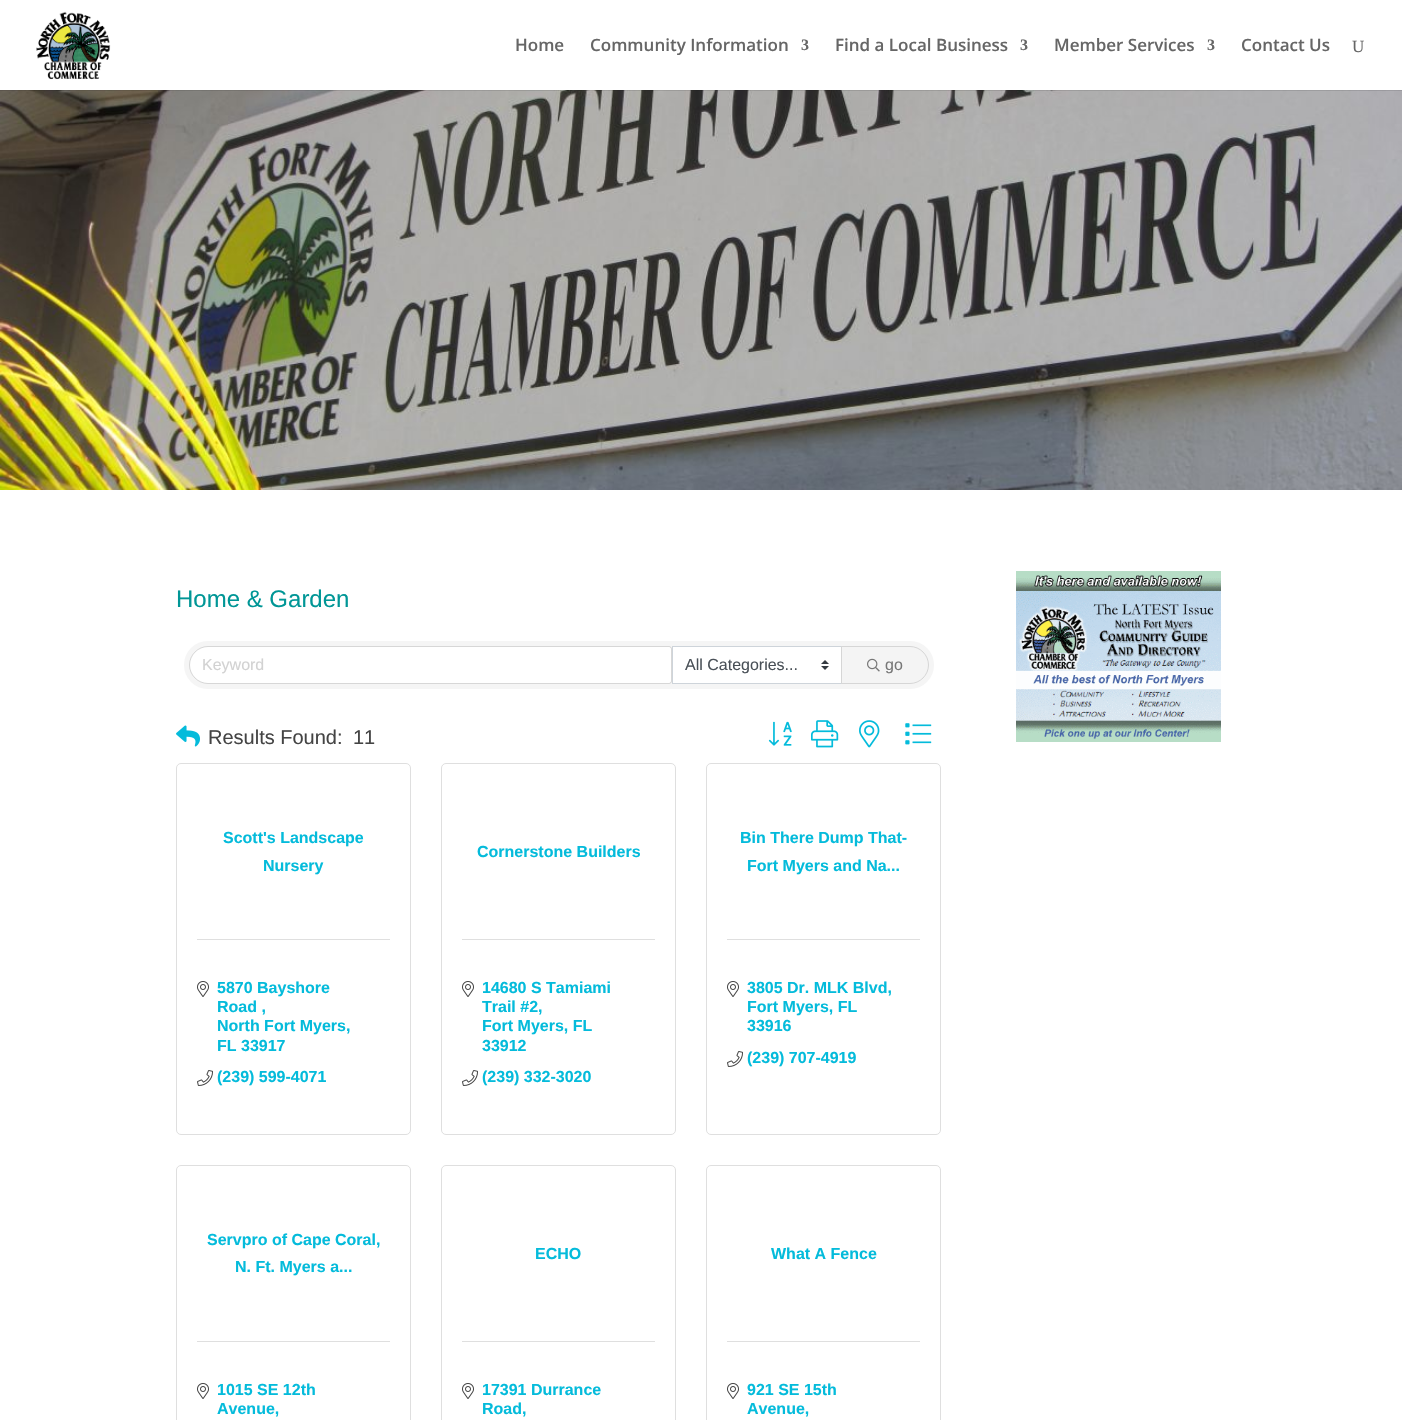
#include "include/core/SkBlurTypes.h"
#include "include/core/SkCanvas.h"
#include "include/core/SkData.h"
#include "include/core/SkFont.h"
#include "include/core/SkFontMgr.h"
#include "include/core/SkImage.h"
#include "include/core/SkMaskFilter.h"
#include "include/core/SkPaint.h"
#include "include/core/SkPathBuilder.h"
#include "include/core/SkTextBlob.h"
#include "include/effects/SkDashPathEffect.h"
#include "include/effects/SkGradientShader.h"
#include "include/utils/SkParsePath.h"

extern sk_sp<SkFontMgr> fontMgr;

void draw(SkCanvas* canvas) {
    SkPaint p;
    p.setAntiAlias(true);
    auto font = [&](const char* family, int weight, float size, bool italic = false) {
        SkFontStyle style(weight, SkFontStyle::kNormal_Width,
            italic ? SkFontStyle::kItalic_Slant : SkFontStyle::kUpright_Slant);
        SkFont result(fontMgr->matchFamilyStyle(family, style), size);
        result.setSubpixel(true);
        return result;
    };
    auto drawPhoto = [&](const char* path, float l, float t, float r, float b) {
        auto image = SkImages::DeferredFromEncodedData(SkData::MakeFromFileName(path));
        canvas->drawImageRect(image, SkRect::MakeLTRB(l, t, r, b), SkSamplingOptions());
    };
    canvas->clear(0xFFFFFFFF);
    drawPhoto("media/2.png", 0, 90, 1402, 490);
    p.setColor(0x1A000000);
    canvas->drawRect(SkRect::MakeLTRB(0, 90, 1402, 91), p);
    drawPhoto("media/1.png", 36, 11, 111, 80);
    auto font1 = font("Open Sans", 600, 17);
    p.setColor(0xFF666666);
    canvas->drawString("Home", 515, 51, font1, p);
    canvas->drawString("Community Information", 590, 51, font1, p);
    auto font2 = font("Liberation Serif", 700, 16);
    canvas->drawString("3", 801, 50, font2, p);
    canvas->drawString("Find a Local Business", 835, 51, font1, p);
    canvas->drawString("3", 1020, 50, font2, p);
    canvas->drawString("Member Services", 1054, 51, font1, p);
    canvas->drawString("3", 1207, 50, font2, p);
    canvas->drawString("Contact Us", 1241, 51, font1, p);
    auto font3 = font("Liberation Serif", 400, 17);
    canvas->drawString("U", 1352, 52, font3, p);
    auto font4 = font("Liberation Sans", 400, 24);
    p.setColor(0xFF009696);
    canvas->drawString("Home & Garden", 176, 607, font4, p);
    p.setColor(0xFFF5F5F5);
    canvas->drawRoundRect(SkRect::MakeLTRB(184, 641, 934, 689), 24, 24, p);
    p.setColor(0xFFFFFFFF);
    canvas->drawPath(SkPathBuilder().moveTo(208, 647).lineTo(669, 647).cubicTo(670, 647, 671, 648, 671, 649).lineTo(671, 681).cubicTo(671, 682, 670, 683, 669, 683).lineTo(208, 683).cubicTo(198, 683, 190, 675, 190, 665).cubicTo(190, 655, 198, 647, 208, 647).close().detach(), p);
    p.setStyle(SkPaint::kStroke_Style);
    p.setStrokeWidth(1);
    p.setColor(0x1F000000);
    canvas->drawPath(SkPathBuilder().moveTo(208, 646.5f).lineTo(669, 646.5f).cubicTo(670.5f, 646.5f, 671.5f, 647.5f, 671.5f, 649).lineTo(671.5f, 681).cubicTo(671.5f, 682.5f, 670.5f, 683.5f, 669, 683.5f).lineTo(208, 683.5f).cubicTo(198, 683.5f, 189.5f, 675, 189.5f, 665).cubicTo(189.5f, 655, 198, 646.5f, 208, 646.5f).close().detach(), p);
    auto font5 = font("Liberation Sans", 400, 16);
    p.setStyle(SkPaint::kFill_Style);
    p.setColor(0xFFD2D2D2);
    canvas->drawString("Keyword", 202, 670, font5, p);
    p.setColor(0xFFFFFFFF);
    canvas->drawRect(SkRect::MakeLTRB(673, 647, 841, 683), p);
    drawPhoto("media/3.png", 821, 660, 829, 670);
    p.setStyle(SkPaint::kStroke_Style);
    p.setColor(0xFFCED4DA);
    canvas->drawRect(SkRect::MakeLTRB(672.5f, 646.5f, 841.5f, 683.5f), p);
    p.setStyle(SkPaint::kFill_Style);
    p.setColor(0xFF495057);
    canvas->drawString("All Categories...", 685, 670, font5, p);
    p.setColor(0xFFF4F4F4);
    canvas->drawPath(SkPathBuilder().moveTo(841.5f, 646.5f).lineTo(910, 646.5f).cubicTo(920, 646.5f, 928.5f, 655, 928.5f, 665).cubicTo(928.5f, 675, 920, 683.5f, 910, 683.5f).lineTo(841.5f, 683.5f).close().detach(), p);
    p.setStyle(SkPaint::kStroke_Style);
    p.setColor(0xFFD6D6D6);
    canvas->drawPath(SkPathBuilder().moveTo(841.5f, 646.5f).lineTo(910, 646.5f).cubicTo(920, 646.5f, 928.5f, 655, 928.5f, 665).cubicTo(928.5f, 675, 920, 683.5f, 910, 683.5f).lineTo(841.5f, 683.5f).close().detach(), p);
    drawPhoto("media/4.png", 867, 658, 880, 672);
    p.setStyle(SkPaint::kFill_Style);
    p.setColor(0xFF777777);
    canvas->drawString("go", 885, 670, font5, p);
    drawPhoto("media/5.png", 176, 725, 200, 747);
    auto font6 = font("Liberation Sans", 400, 20);
    p.setColor(0xFF444444);
    canvas->drawString("Results Found:", 208, 744, font6, p);
    canvas->drawString("11", 353, 744, font6, p);
    drawPhoto("media/6.png", 768, 721, 792, 746);
    drawPhoto("media/7.png", 811, 720, 839, 748);
    drawPhoto("media/8.png", 859, 720, 880, 748);
    drawPhoto("media/9.png", 905, 723, 932, 745);
    p.setStyle(SkPaint::kStroke_Style);
    p.setColor(0xFFDFDFDF);
    canvas->drawRoundRect(SkRect::MakeLTRB(176.5f, 763.5f, 410.5f, 1134.5f), 4.5f, 4.5f, p);
    auto font7 = font("Liberation Sans", 700, 16);
    p.setStyle(SkPaint::kFill_Style);
    p.setColor(0xFF04BBDB);
    canvas->drawString("Scott's Landscape", 223, 843, font7, p);
    canvas->drawString("Nursery", 263, 871, font7, p);
    p.setColor(0xFFDFDFDF);
    canvas->drawRect(SkRect::MakeLTRB(197, 939, 390, 940), p);
    drawPhoto("media/10.png", 197, 981, 209, 997);
    p.setColor(0xFF04BBDB);
    {
        const struct { const char* s; float x, y; } items[] = {
            {"5870 Bayshore", 217, 993},
            {"Road ,", 217, 1012},
            {"North Fort Myers,", 217, 1031},
            {"FL 33917", 217, 1051},
        };
        for (auto [s, x, y] : items) {
            canvas->drawString(s, x, y, font7, p);
        }
    }
    drawPhoto("media/11.png", 197, 1070, 213, 1086);
    canvas->drawString("(239) 599-4071", 217, 1082, font7, p);
    p.setStyle(SkPaint::kStroke_Style);
    p.setColor(0xFFDFDFDF);
    canvas->drawRoundRect(SkRect::MakeLTRB(441.5f, 763.5f, 675.5f, 1134.5f), 4.5f, 4.5f, p);
    p.setStyle(SkPaint::kFill_Style);
    p.setColor(0xFF04BBDB);
    canvas->drawString("Cornerstone Builders", 477, 857, font7, p);
    p.setColor(0xFFDFDFDF);
    canvas->drawRect(SkRect::MakeLTRB(462, 939, 655, 940), p);
    drawPhoto("media/10.png", 462, 981, 474, 997);
    p.setColor(0xFF04BBDB);
    {
        const struct { const char* s; float x, y; } items[] = {
            {"14680 S Tamiami", 482, 993},
            {"Trail #2,", 482, 1012},
            {"Fort Myers, FL", 482, 1031},
            {"33912", 482, 1051},
        };
        for (auto [s, x, y] : items) {
            canvas->drawString(s, x, y, font7, p);
        }
    }
    drawPhoto("media/11.png", 462, 1070, 478, 1086);
    canvas->drawString("(239) 332-3020", 482, 1082, font7, p);
    p.setStyle(SkPaint::kStroke_Style);
    p.setColor(0xFFDFDFDF);
    canvas->drawRoundRect(SkRect::MakeLTRB(706.5f, 763.5f, 940.5f, 1134.5f), 4.5f, 4.5f, p);
    p.setStyle(SkPaint::kFill_Style);
    p.setColor(0xFF04BBDB);
    canvas->drawString("Bin There Dump That-", 740, 843, font7, p);
    canvas->drawString("Fort Myers and Na...", 747, 871, font7, p);
    p.setColor(0xFFDFDFDF);
    canvas->drawRect(SkRect::MakeLTRB(727, 939, 920, 940), p);
    drawPhoto("media/10.png", 727, 981, 739, 997);
    p.setColor(0xFF04BBDB);
    {
        const struct { const char* s; float x, y; } items[] = {
            {"3805 Dr. MLK Blvd,", 747, 993},
            {"Fort Myers, FL", 747, 1012},
            {"33916", 747, 1031},
        };
        for (auto [s, x, y] : items) {
            canvas->drawString(s, x, y, font7, p);
        }
    }
    drawPhoto("media/11.png", 727, 1051, 743, 1067);
    canvas->drawString("(239) 707-4919", 747, 1063, font7, p);
    p.setStyle(SkPaint::kStroke_Style);
    p.setColor(0xFFDFDFDF);
    canvas->drawRoundRect(SkRect::MakeLTRB(176.5f, 1165.5f, 410.5f, 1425.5f), 4.5f, 4.5f, p);
    p.setStyle(SkPaint::kFill_Style);
    p.setColor(0xFF04BBDB);
    canvas->drawString("Servpro of Cape Coral,", 207, 1245, font7, p);
    canvas->drawString("N. Ft. Myers a...", 235, 1272, font7, p);
    p.setColor(0xFFDFDFDF);
    canvas->drawRect(SkRect::MakeLTRB(197, 1341, 390, 1342), p);
    drawPhoto("media/10.png", 197, 1383, 209, 1399);
    p.setColor(0xFF04BBDB);
    canvas->drawString("1015 SE 12th", 217, 1395, font7, p);
    canvas->drawString("Avenue,", 217, 1414, font7, p);
    p.setStyle(SkPaint::kStroke_Style);
    p.setColor(0xFFDFDFDF);
    canvas->drawRoundRect(SkRect::MakeLTRB(441.5f, 1165.5f, 675.5f, 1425.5f), 4.5f, 4.5f, p);
    p.setStyle(SkPaint::kFill_Style);
    p.setColor(0xFF04BBDB);
    canvas->drawString("ECHO", 535, 1259, font7, p);
    p.setColor(0xFFDFDFDF);
    canvas->drawRect(SkRect::MakeLTRB(462, 1341, 655, 1342), p);
    drawPhoto("media/10.png", 462, 1383, 474, 1399);
    p.setColor(0xFF04BBDB);
    canvas->drawString("17391 Durrance", 482, 1395, font7, p);
    canvas->drawString("Road,", 482, 1414, font7, p);
    p.setStyle(SkPaint::kStroke_Style);
    p.setColor(0xFFDFDFDF);
    canvas->drawRoundRect(SkRect::MakeLTRB(706.5f, 1165.5f, 940.5f, 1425.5f), 4.5f, 4.5f, p);
    p.setStyle(SkPaint::kFill_Style);
    p.setColor(0xFF04BBDB);
    canvas->drawString("What A Fence", 771, 1259, font7, p);
    p.setColor(0xFFDFDFDF);
    canvas->drawRect(SkRect::MakeLTRB(727, 1341, 920, 1342), p);
    drawPhoto("media/10.png", 727, 1383, 739, 1399);
    p.setColor(0xFF04BBDB);
    canvas->drawString("921 SE 15th", 747, 1395, font7, p);
    canvas->drawString("Avenue,", 747, 1414, font7, p);
    drawPhoto("media/12.png", 1016, 571, 1221, 742);
}
